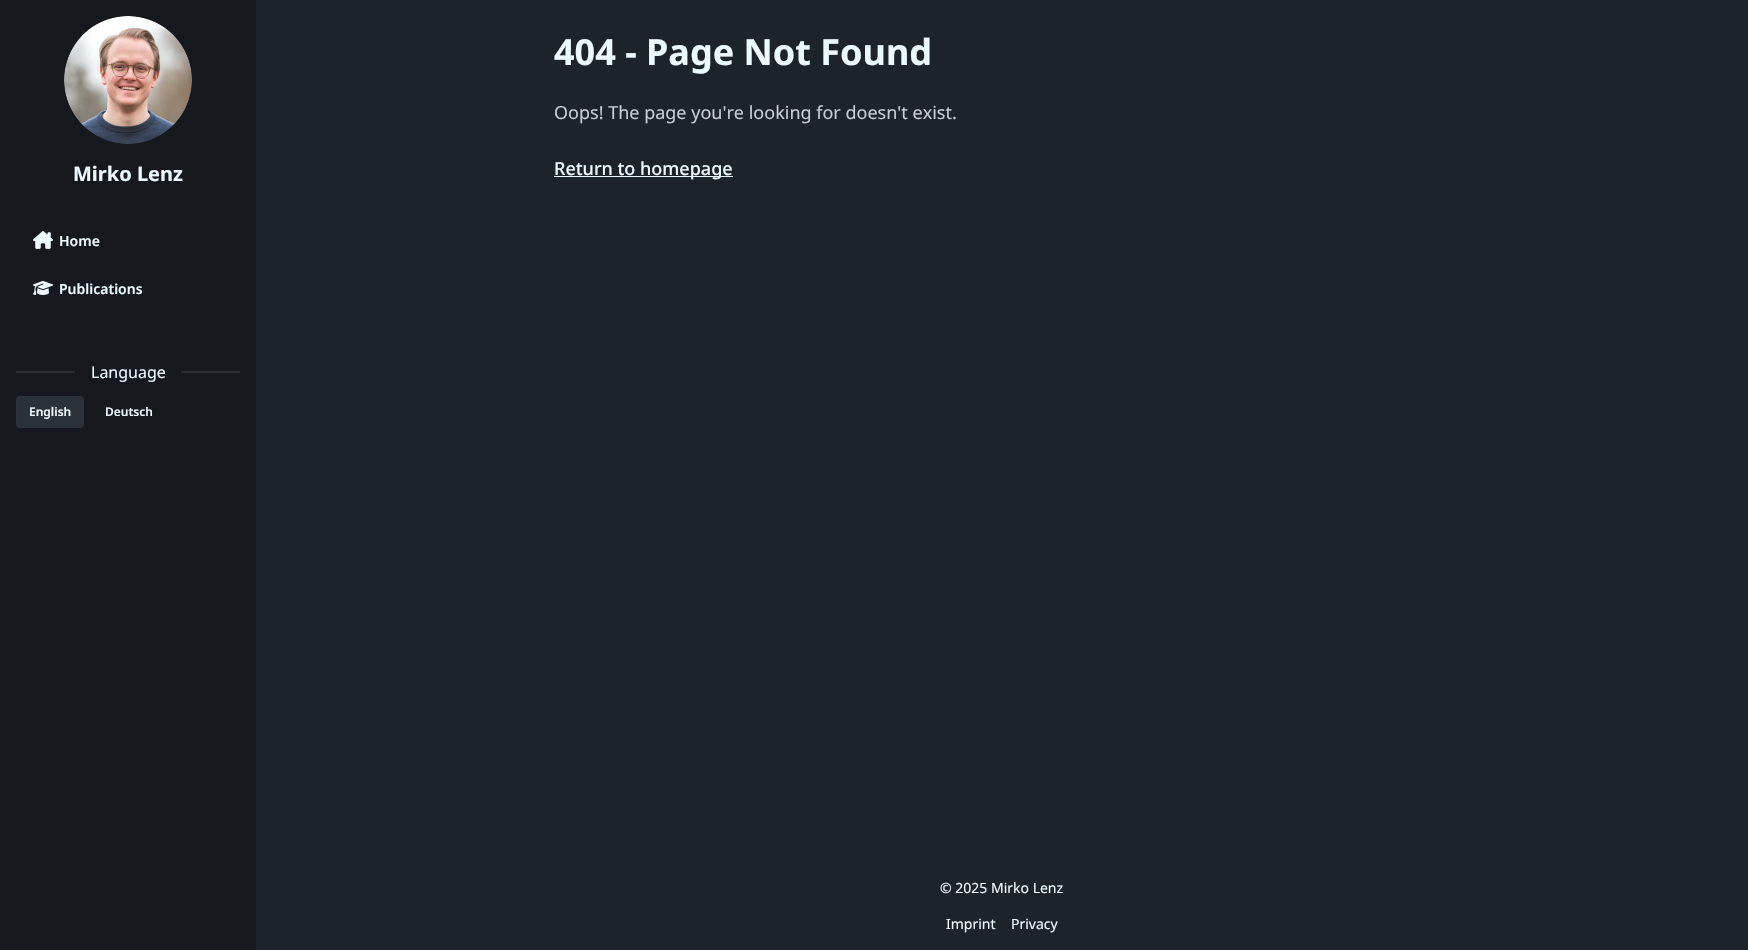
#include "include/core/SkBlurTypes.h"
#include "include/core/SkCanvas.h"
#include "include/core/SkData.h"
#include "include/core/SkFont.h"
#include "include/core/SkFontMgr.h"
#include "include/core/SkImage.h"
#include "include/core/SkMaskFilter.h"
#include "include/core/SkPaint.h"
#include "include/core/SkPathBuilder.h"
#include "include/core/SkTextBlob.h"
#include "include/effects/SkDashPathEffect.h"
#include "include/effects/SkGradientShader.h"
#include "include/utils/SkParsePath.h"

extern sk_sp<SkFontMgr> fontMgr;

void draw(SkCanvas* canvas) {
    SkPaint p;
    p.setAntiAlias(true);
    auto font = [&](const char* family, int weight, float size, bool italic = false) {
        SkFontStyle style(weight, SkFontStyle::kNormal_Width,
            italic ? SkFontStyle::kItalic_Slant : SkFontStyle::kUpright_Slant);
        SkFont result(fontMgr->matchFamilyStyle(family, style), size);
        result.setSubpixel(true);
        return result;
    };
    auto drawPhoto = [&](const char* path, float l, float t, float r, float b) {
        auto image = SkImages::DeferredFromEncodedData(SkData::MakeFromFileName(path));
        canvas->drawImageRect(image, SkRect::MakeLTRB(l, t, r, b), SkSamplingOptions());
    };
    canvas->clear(0xFF1D232A);
    p.setColor(0xFF15191E);
    canvas->drawRect(SkRect::MakeLTRB(0, 0, 256, 950), p);
    drawPhoto("media/1.png", 64, 16, 192, 144);
    auto font1 = font("Noto Sans", 700, 20);
    p.setColor(0xFFECF9FF);
    canvas->drawString("Mirko Lenz", 73, 181, font1, p);
    drawPhoto("media/2.png", 33, 231, 53, 249);
    auto font2 = font("Noto Sans", 600, 14);
    canvas->drawString("Home", 59, 246, font2, p);
    drawPhoto("media/3.png", 33, 281, 53, 295);
    canvas->drawString("Publications", 59, 294, font2, p);
    p.setColor(0xFF2B2F35);
    canvas->drawRect(SkRect::MakeLTRB(16, 371, 75, 373), p);
    auto font3 = font("Noto Sans", 400, 16);
    p.setColor(0xFFECF9FF);
    canvas->drawString("Language", 91, 378, font3, p);
    p.setColor(0xFF2B2F35);
    canvas->drawRect(SkRect::MakeLTRB(181, 371, 240, 373), p);
    p.setColor(0xFF2B3139);
    canvas->drawRoundRect(SkRect::MakeLTRB(16.5f, 396.5f, 83.5f, 427.5f), 3.5f, 3.5f, p);
    p.setStyle(SkPaint::kStroke_Style);
    p.setStrokeWidth(1);
    p.setColor(0xFF2E353D);
    canvas->drawRoundRect(SkRect::MakeLTRB(16.5f, 396.5f, 83.5f, 427.5f), 3.5f, 3.5f, p);
    auto font4 = font("Noto Sans", 600, 12);
    p.setStyle(SkPaint::kFill_Style);
    p.setColor(0xFFECF9FF);
    canvas->drawString("English", 29, 416, font4, p);
    canvas->drawString("Deutsch", 105, 416, font4, p);
    auto font5 = font("Noto Sans", 700, 36);
    canvas->drawString("404 - Page Not Found", 554, 65, font5, p);
    auto font6 = font("Noto Sans", 400, 18);
    p.setColor(0xFFC3CED4);
    canvas->drawString("Oops! The page you're looking for doesn't exist.", 554, 119, font6, p);
    p.setColor(0xFFECF9FF);
    canvas->drawRect(SkRect::MakeLTRB(554, 176, 733, 177), p);
    auto font7 = font("Noto Sans", 500, 18);
    canvas->drawString("Return to homepage", 554, 175, font7, p);
    auto font8 = font("Noto Sans", 400, 14);
    {
        const struct { const char* s; float x, y; } items[] = {
            {"© 2025 Mirko Lenz", 940, 893},
            {"Imprint", 946, 929},
            {"Privacy", 1011, 929},
        };
        for (auto [s, x, y] : items) {
            canvas->drawString(s, x, y, font8, p);
        }
    }
}
